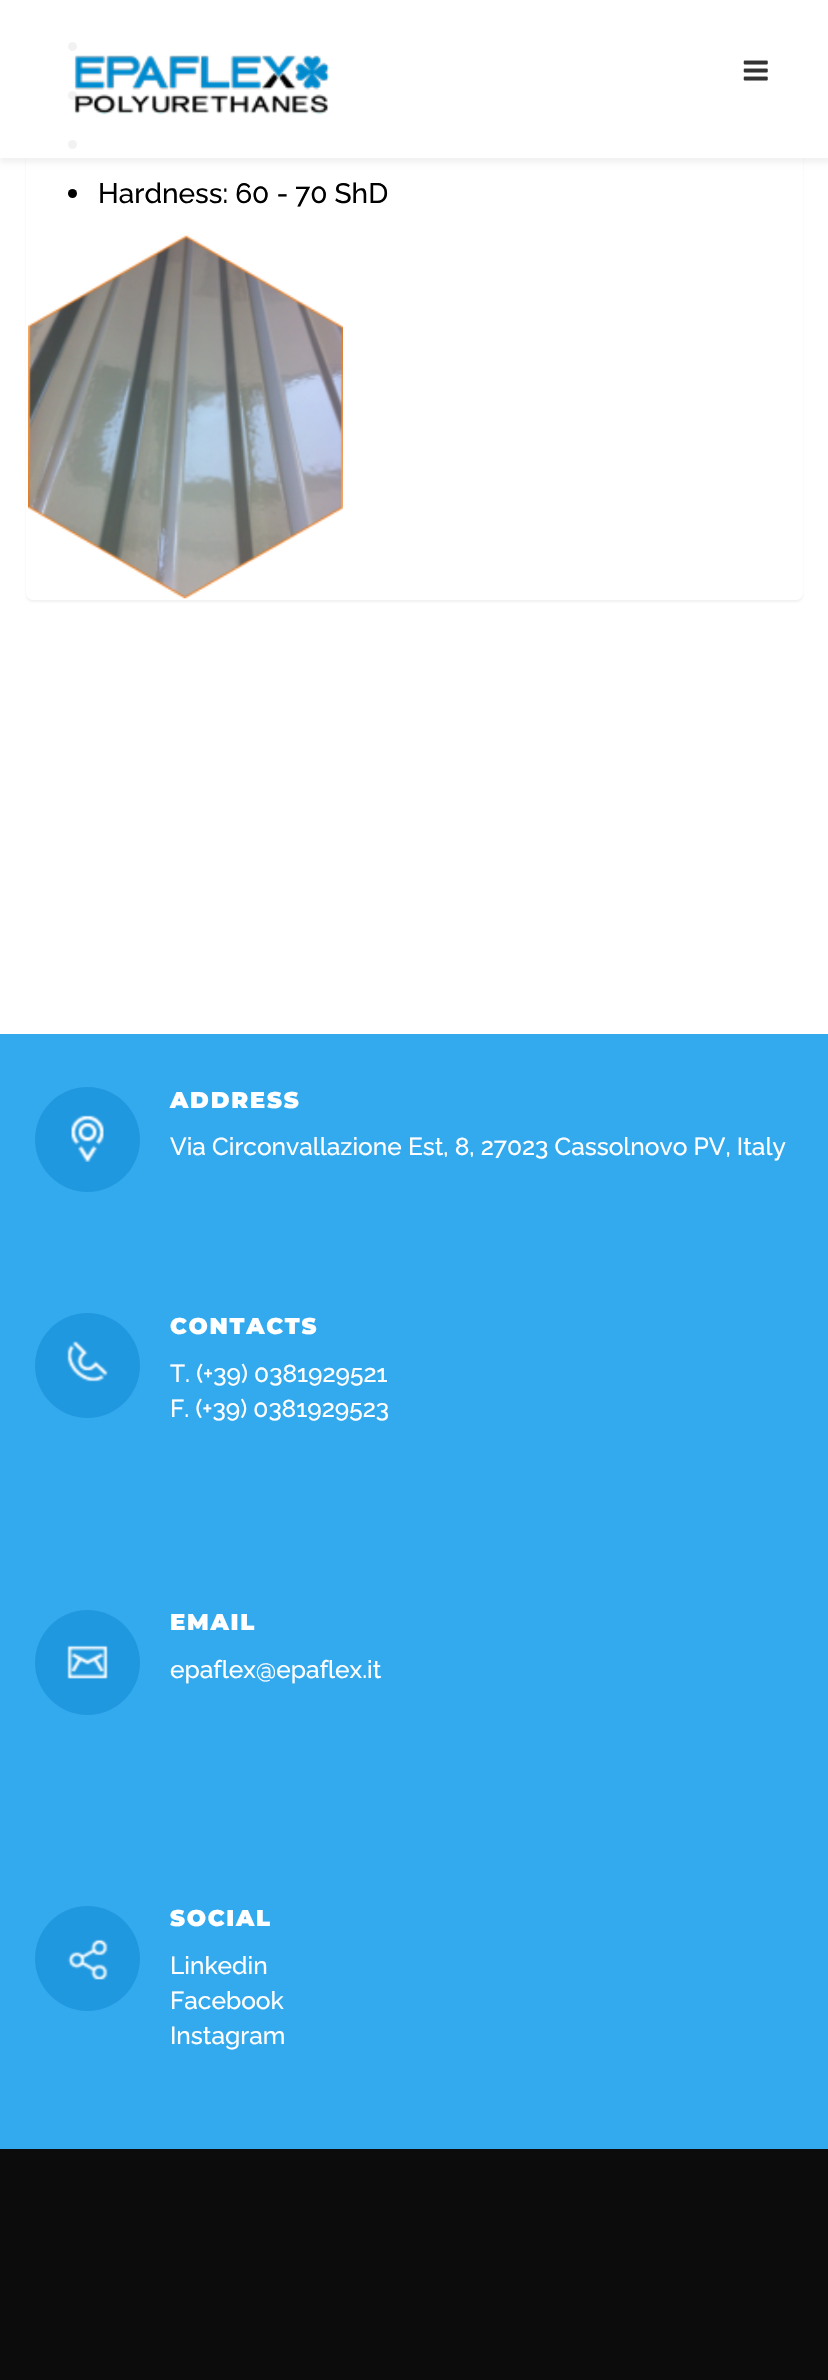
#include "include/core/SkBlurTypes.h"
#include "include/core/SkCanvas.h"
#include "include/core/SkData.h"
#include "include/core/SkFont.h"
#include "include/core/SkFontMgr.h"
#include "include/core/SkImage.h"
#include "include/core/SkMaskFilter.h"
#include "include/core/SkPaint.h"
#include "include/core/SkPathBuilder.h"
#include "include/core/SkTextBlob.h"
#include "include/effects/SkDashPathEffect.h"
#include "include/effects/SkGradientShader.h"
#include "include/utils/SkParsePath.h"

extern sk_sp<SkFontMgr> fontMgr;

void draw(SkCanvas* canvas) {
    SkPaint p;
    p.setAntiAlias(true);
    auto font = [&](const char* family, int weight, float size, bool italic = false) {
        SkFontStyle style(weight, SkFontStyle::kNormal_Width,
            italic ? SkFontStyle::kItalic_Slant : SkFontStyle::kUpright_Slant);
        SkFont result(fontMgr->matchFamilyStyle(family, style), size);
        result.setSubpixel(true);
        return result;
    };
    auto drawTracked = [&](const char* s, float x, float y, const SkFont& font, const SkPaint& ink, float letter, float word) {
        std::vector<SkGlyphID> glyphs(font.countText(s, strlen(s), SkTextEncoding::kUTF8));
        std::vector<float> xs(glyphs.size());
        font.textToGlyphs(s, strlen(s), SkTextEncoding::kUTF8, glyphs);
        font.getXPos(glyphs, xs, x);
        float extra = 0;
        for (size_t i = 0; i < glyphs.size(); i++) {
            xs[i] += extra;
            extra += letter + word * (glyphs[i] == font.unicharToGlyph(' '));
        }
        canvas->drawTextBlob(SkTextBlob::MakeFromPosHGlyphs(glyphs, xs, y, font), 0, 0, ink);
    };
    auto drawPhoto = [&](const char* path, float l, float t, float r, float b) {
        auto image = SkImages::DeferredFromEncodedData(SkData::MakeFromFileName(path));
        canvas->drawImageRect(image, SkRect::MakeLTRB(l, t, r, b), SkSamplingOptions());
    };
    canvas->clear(0xFFFFFFFF);
    p.setColor(0x0D000000);
    p.setMaskFilter(SkMaskFilter::MakeBlur(kNormal_SkBlurStyle, 1));
    canvas->drawRoundRect(SkRect::MakeLTRB(26, -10, 803, 602), 7, 7, p);
    p.setMaskFilter(nullptr);
    p.setColor(0xFFFFFFFF);
    canvas->drawRoundRect(SkRect::MakeLTRB(26, -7, 803, 600), 7, 7, p);
    p.setColor(0xFF000000);
    canvas->drawCircle(72.5f, 46.5f, 4.5f, p);
    canvas->drawCircle(72.5f, 95.5f, 4.5f, p);
    canvas->drawCircle(72.5f, 144.5f, 4.5f, p);
    canvas->save();
    canvas->clipPath(SkPathBuilder(SkPathFillType::kEvenOdd).moveTo(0, 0).lineTo(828, 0).lineTo(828, 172).lineTo(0, 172).close().moveTo(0, 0).lineTo(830, 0).lineTo(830, 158).lineTo(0, 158).close().detach(), true);
    p.setColor(0x0D000000);
    p.setMaskFilter(SkMaskFilter::MakeBlur(kNormal_SkBlurStyle, 2.5f));
    canvas->drawRect(SkRect::MakeLTRB(0, 5, 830, 163), p);
    p.setMaskFilter(nullptr);
    canvas->restore();
    p.setColor(0xF2FFFFFF);
    canvas->drawRect(SkRect::MakeLTRB(0, 0, 828, 158), p);
    drawPhoto("media/1.png", 74, 55, 330, 115);
    drawPhoto("media/2.png", 743, 60, 768, 81);
    p.setColor(0xFF000000);
    canvas->drawCircle(72.5f, 193.5f, 4.5f, p);
    auto font1 = font("Raleway", 500, 28);
    canvas->drawString("Hardness: 60 - 70 ShD", 98, 203, font1, p);
    drawPhoto("media/3.png", 28, 235, 343, 599);
    p.setColor(0xFF33A9EE);
    canvas->drawRect(SkRect::MakeLTRB(0, 1034, 828, 2149), p);
    p.setColor(0xFF2098DF);
    canvas->drawCircle(87.5f, 1139.5f, 52.5f, p);
    drawPhoto("media/4.png", 71, 1115, 104, 1162);
    auto font2 = font("Montserrat", 900, 22.75f);
    p.setColor(0xFFFFFFFF);
    drawTracked("ADDRESS", 170, 1108, font2, p, 1.75f, 0);
    auto font3 = font("Raleway", 500, 24.5f);
    canvas->drawString("Via Circonvallazione Est, 8, 27023 Cassolnovo PV, Italy", 170, 1155, font3, p);
    p.setColor(0xFF2098DF);
    canvas->drawCircle(87.5f, 1365.5f, 52.5f, p);
    drawPhoto("media/5.png", 67, 1341, 108, 1382);
    p.setColor(0xFFFFFFFF);
    drawTracked("CONTACTS", 170, 1334, font2, p, 1.75f, 0);
    canvas->drawString("T. (+39) 0381929521", 170, 1382, font3, p);
    canvas->drawString("F. (+39) 0381929523", 170, 1417, font3, p);
    p.setColor(0xFF2098DF);
    canvas->drawCircle(87.5f, 1662.5f, 52.5f, p);
    drawPhoto("media/6.png", 67, 1645, 108, 1679);
    p.setColor(0xFFFFFFFF);
    drawTracked("EMAIL", 170, 1630, font2, p, 1.75f, 0);
    canvas->drawString("epaflex@epaflex.it", 170, 1678, font3, p);
    p.setColor(0xFF2098DF);
    canvas->drawCircle(87.5f, 1958.5f, 52.5f, p);
    drawPhoto("media/7.png", 67, 1939, 108, 1980);
    p.setColor(0xFFFFFFFF);
    drawTracked("SOCIAL", 170, 1926, font2, p, 1.75f, 0);
    {
        const struct { const char* s; float x, y; } items[] = {
            {"Linkedin", 170, 1974},
            {"Facebook", 170, 2009},
            {"Instagram", 170, 2044},
        };
        for (auto [s, x, y] : items) {
            canvas->drawString(s, x, y, font3, p);
        }
    }
    p.setColor(0xFF0C0C0C);
    canvas->drawRect(SkRect::MakeLTRB(0, 2149, 828, 2380), p);
}
